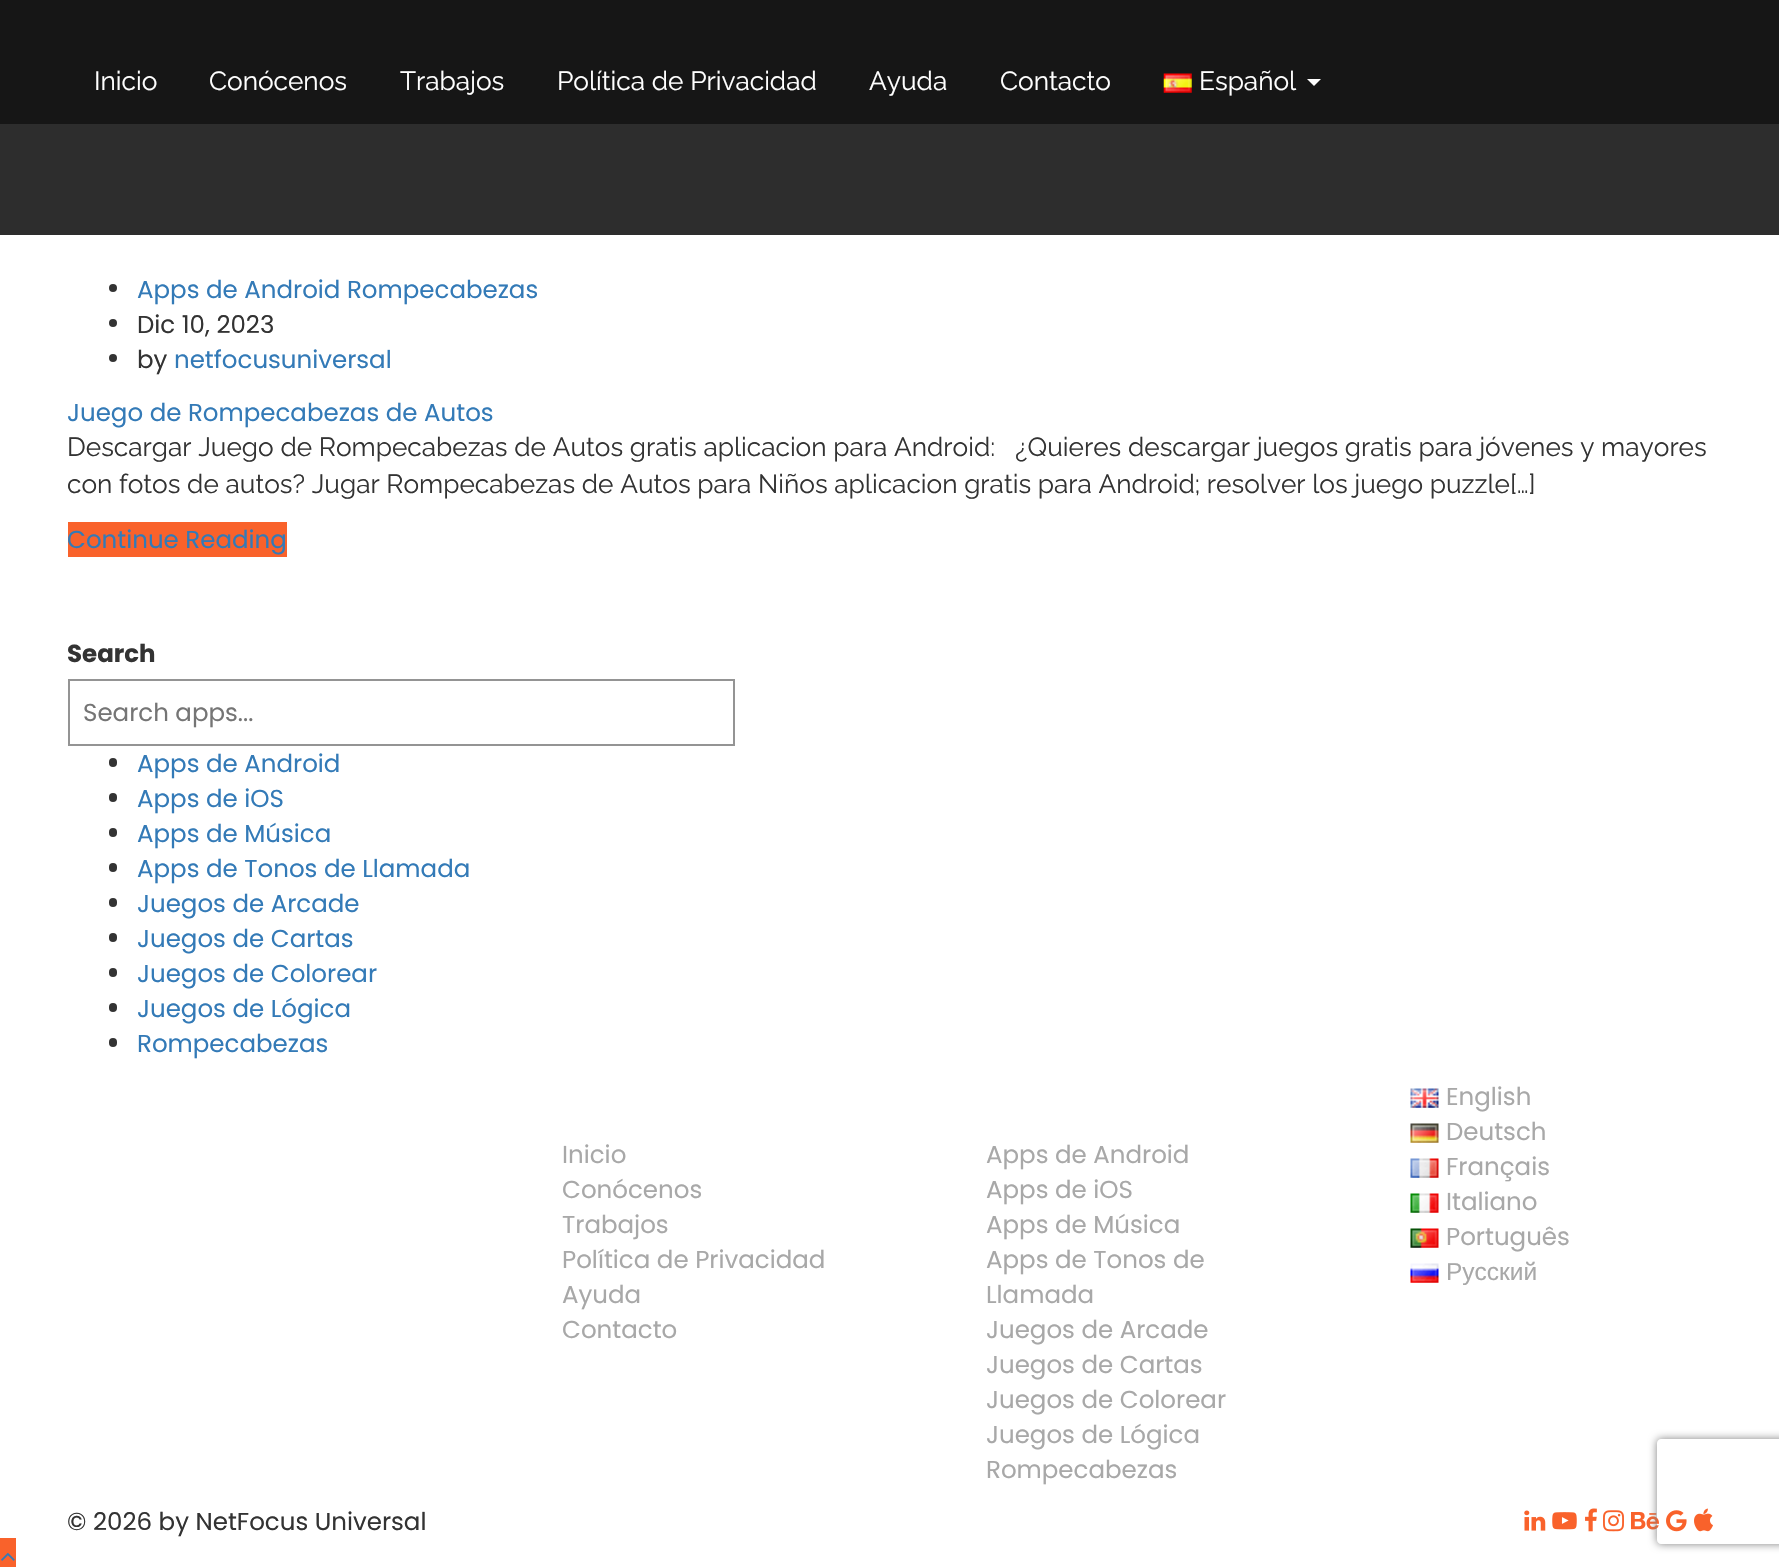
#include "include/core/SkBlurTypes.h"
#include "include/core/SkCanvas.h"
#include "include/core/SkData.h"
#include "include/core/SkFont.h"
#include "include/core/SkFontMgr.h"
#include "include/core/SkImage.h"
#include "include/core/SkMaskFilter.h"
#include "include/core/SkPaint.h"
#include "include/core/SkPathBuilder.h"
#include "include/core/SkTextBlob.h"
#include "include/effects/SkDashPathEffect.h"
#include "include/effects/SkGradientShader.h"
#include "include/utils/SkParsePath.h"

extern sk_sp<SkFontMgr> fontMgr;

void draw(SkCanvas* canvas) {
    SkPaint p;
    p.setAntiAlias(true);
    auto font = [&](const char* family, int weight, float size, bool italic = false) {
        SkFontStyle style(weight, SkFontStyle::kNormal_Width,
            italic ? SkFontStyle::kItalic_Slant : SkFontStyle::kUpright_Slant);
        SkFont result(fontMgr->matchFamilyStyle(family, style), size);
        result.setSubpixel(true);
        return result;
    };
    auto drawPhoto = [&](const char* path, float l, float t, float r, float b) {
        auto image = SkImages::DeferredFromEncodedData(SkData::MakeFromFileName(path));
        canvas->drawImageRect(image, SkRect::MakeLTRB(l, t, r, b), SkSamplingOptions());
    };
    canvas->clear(0xFFFFFFFF);
    p.setColor(0xFF161616);
    canvas->drawRect(SkRect::MakeLTRB(0, 0, 1779, 124), p);
    auto font1 = font("Raleway", 400, 26.25f);
    p.setColor(0xFFFFFFFF);
    {
        const struct { const char* s; float x, y; } items[] = {
            {"Inicio", 94, 90},
            {"Conócenos", 209, 90},
            {"Trabajos", 400, 90},
            {"Política de Privacidad", 557, 90},
            {"Ayuda", 869, 90},
            {"Contacto", 1000, 90},
        };
        for (auto [s, x, y] : items) {
            canvas->drawString(s, x, y, font1, p);
        }
    }
    drawPhoto("media/1.png", 1163, 73, 1192, 93);
    canvas->drawString("Español", 1199, 90, font1, p);
    canvas->drawPath(SkPathBuilder().moveTo(1307, 79).lineTo(1321, 79).lineTo(1314, 86).close().detach(), p);
    p.setColor(0xFF2D2D2D);
    canvas->drawRect(SkRect::MakeLTRB(0, 124, 1779, 235), p);
    p.setColor(0xFF333333);
    canvas->drawCircle(113, 288, 4, p);
    auto font2 = font("Poppins", 400, 24.5f);
    p.setColor(0xFF337AB7);
    canvas->drawString("Apps de Android Rompecabezas", 137, 298, font2, p);
    p.setColor(0xFF333333);
    canvas->drawCircle(113, 323, 4, p);
    canvas->drawString("Dic 10, 2023", 137, 333, font2, p);
    canvas->drawCircle(113, 358, 4, p);
    canvas->drawString("by", 137, 368, font2, p);
    p.setColor(0xFF337AB7);
    canvas->drawString("netfocusuniversal", 174, 368, font2, p);
    canvas->drawString("Juego de Rompecabezas de Autos", 67, 421, font2, p);
    p.setColor(0xFF333333);
    canvas->drawString("Descargar Juego de Rompecabezas de Autos gratis aplicacion para Android:   ¿Quieres descargar juegos gratis para jóvenes y mayores", 67, 456, font1, p);
    canvas->drawString("con fotos de autos? Jugar Rompecabezas de Autos para Niños aplicacion gratis para Android; resolver los juego puzzle[…]", 67, 493, font1, p);
    p.setColor(0xFFF9622B);
    canvas->drawRect(SkRect::MakeLTRB(68, 522, 287, 557), p);
    p.setColor(0xFF337AB7);
    canvas->drawString("Continue Reading", 67, 548, font2, p);
    auto font3 = font("Poppins", 700, 24.5f);
    p.setColor(0xFF333333);
    canvas->drawString("Search", 67, 662, font3, p);
    p.setStyle(SkPaint::kStroke_Style);
    p.setStrokeWidth(2);
    p.setColor(0xFF949494);
    canvas->drawRect(SkRect::MakeLTRB(69, 680, 734, 745), p);
    p.setStyle(SkPaint::kFill_Style);
    p.setColor(0xFF757575);
    canvas->drawString("Search apps...", 83, 721, font2, p);
    p.setColor(0xFF333333);
    canvas->drawRoundRect(SkRect::MakeLTRB(109, 758, 117, 767), 4, 4, p);
    p.setColor(0xFF337AB7);
    canvas->drawString("Apps de Android", 137, 772, font2, p);
    p.setColor(0xFF333333);
    canvas->drawRoundRect(SkRect::MakeLTRB(109, 793, 117, 802), 4, 4, p);
    p.setColor(0xFF337AB7);
    canvas->drawString("Apps de iOS", 137, 807, font2, p);
    p.setColor(0xFF333333);
    canvas->drawRoundRect(SkRect::MakeLTRB(109, 828, 117, 837), 4, 4, p);
    p.setColor(0xFF337AB7);
    canvas->drawString("Apps de Música", 137, 842, font2, p);
    p.setColor(0xFF333333);
    canvas->drawRoundRect(SkRect::MakeLTRB(109, 863, 117, 872), 4, 4, p);
    p.setColor(0xFF337AB7);
    canvas->drawString("Apps de Tonos de Llamada", 137, 877, font2, p);
    p.setColor(0xFF333333);
    canvas->drawRoundRect(SkRect::MakeLTRB(109, 898, 117, 907), 4, 4, p);
    p.setColor(0xFF337AB7);
    canvas->drawString("Juegos de Arcade", 137, 912, font2, p);
    p.setColor(0xFF333333);
    canvas->drawRoundRect(SkRect::MakeLTRB(109, 933, 117, 942), 4, 4, p);
    p.setColor(0xFF337AB7);
    canvas->drawString("Juegos de Cartas", 137, 947, font2, p);
    p.setColor(0xFF333333);
    canvas->drawRoundRect(SkRect::MakeLTRB(109, 968, 117, 977), 4, 4, p);
    p.setColor(0xFF337AB7);
    canvas->drawString("Juegos de Colorear", 137, 982, font2, p);
    p.setColor(0xFF333333);
    canvas->drawRoundRect(SkRect::MakeLTRB(109, 1003, 117, 1012), 4, 4, p);
    p.setColor(0xFF337AB7);
    canvas->drawString("Juegos de Lógica", 137, 1017, font2, p);
    p.setColor(0xFF333333);
    canvas->drawRoundRect(SkRect::MakeLTRB(109, 1038, 117, 1047), 4, 4, p);
    p.setColor(0xFF337AB7);
    canvas->drawString("Rompecabezas", 137, 1052, font2, p);
    p.setColor(0xFFF9622B);
    canvas->drawRect(SkRect::MakeLTRB(0, 1538, 16, 1567), p);
    drawPhoto("media/2.png", 1, 1552, 15, 1561);
    p.setColor(0xFFA8A8A8);
    {
        const struct { const char* s; float x, y; } items[] = {
            {"Inicio", 562, 1163},
            {"Conócenos", 562, 1198},
            {"Trabajos", 562, 1233},
            {"Política de Privacidad", 562, 1268},
            {"Ayuda", 562, 1303},
            {"Contacto", 562, 1338},
            {"Apps de Android", 986, 1163},
            {"Apps de iOS", 986, 1198},
            {"Apps de Música", 986, 1233},
            {"Apps de Tonos de", 986, 1268},
            {"Llamada", 986, 1303},
            {"Juegos de Arcade", 986, 1338},
            {"Juegos de Cartas", 986, 1373},
            {"Juegos de Colorear", 986, 1408},
            {"Juegos de Lógica", 986, 1443},
            {"Rompecabezas", 986, 1478},
        };
        for (auto [s, x, y] : items) {
            canvas->drawString(s, x, y, font2, p);
        }
    }
    drawPhoto("media/3.png", 1410, 1088, 1439, 1108);
    canvas->drawString("English", 1446, 1105, font2, p);
    drawPhoto("media/4.png", 1410, 1123, 1439, 1143);
    canvas->drawString("Deutsch", 1446, 1140, font2, p);
    drawPhoto("media/5.png", 1410, 1158, 1439, 1178);
    canvas->drawString("Français", 1446, 1175, font2, p);
    drawPhoto("media/6.png", 1410, 1193, 1439, 1213);
    canvas->drawString("Italiano", 1446, 1210, font2, p);
    drawPhoto("media/7.png", 1410, 1228, 1439, 1248);
    canvas->drawString("Português", 1446, 1245, font2, p);
    drawPhoto("media/8.png", 1410, 1263, 1439, 1283);
    auto font4 = font("Liberation Sans", 400, 24.5f);
    canvas->drawString("Русский", 1446, 1280, font4, p);
    p.setColor(0xFF333333);
    canvas->drawString("© 2026 by NetFocus Universal", 67, 1530, font2, p);
    drawPhoto("media/9.png", 1524, 1510, 1546, 1531);
    drawPhoto("media/10.png", 1552, 1512, 1577, 1530);
    drawPhoto("media/11.png", 1585, 1508, 1597, 1532);
    drawPhoto("media/12.png", 1603, 1510, 1624, 1532);
    drawPhoto("media/13.png", 1631, 1512, 1659, 1530);
    drawPhoto("media/14.png", 1666, 1510, 1687, 1532);
    drawPhoto("media/15.png", 1694, 1508, 1713, 1532);
    canvas->save();
    canvas->clipPath(SkPathBuilder(SkPathFillType::kEvenOdd).moveTo(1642, 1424).lineTo(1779, 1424).lineTo(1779, 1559).lineTo(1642, 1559).close().moveTo(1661, 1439).lineTo(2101, 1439).cubicTo(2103, 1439, 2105, 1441, 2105, 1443).lineTo(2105, 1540).cubicTo(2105, 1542, 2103, 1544, 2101, 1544).lineTo(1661, 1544).cubicTo(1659, 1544, 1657, 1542, 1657, 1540).lineTo(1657, 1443).cubicTo(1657, 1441, 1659, 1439, 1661, 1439).close().detach(), true);
    p.setColor(0xFF808080);
    p.setMaskFilter(SkMaskFilter::MakeBlur(kNormal_SkBlurStyle, 4.5f));
    canvas->drawRoundRect(SkRect::MakeLTRB(1657, 1439, 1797, 1544), 4, 4, p);
    p.setMaskFilter(nullptr);
    canvas->restore();
}
